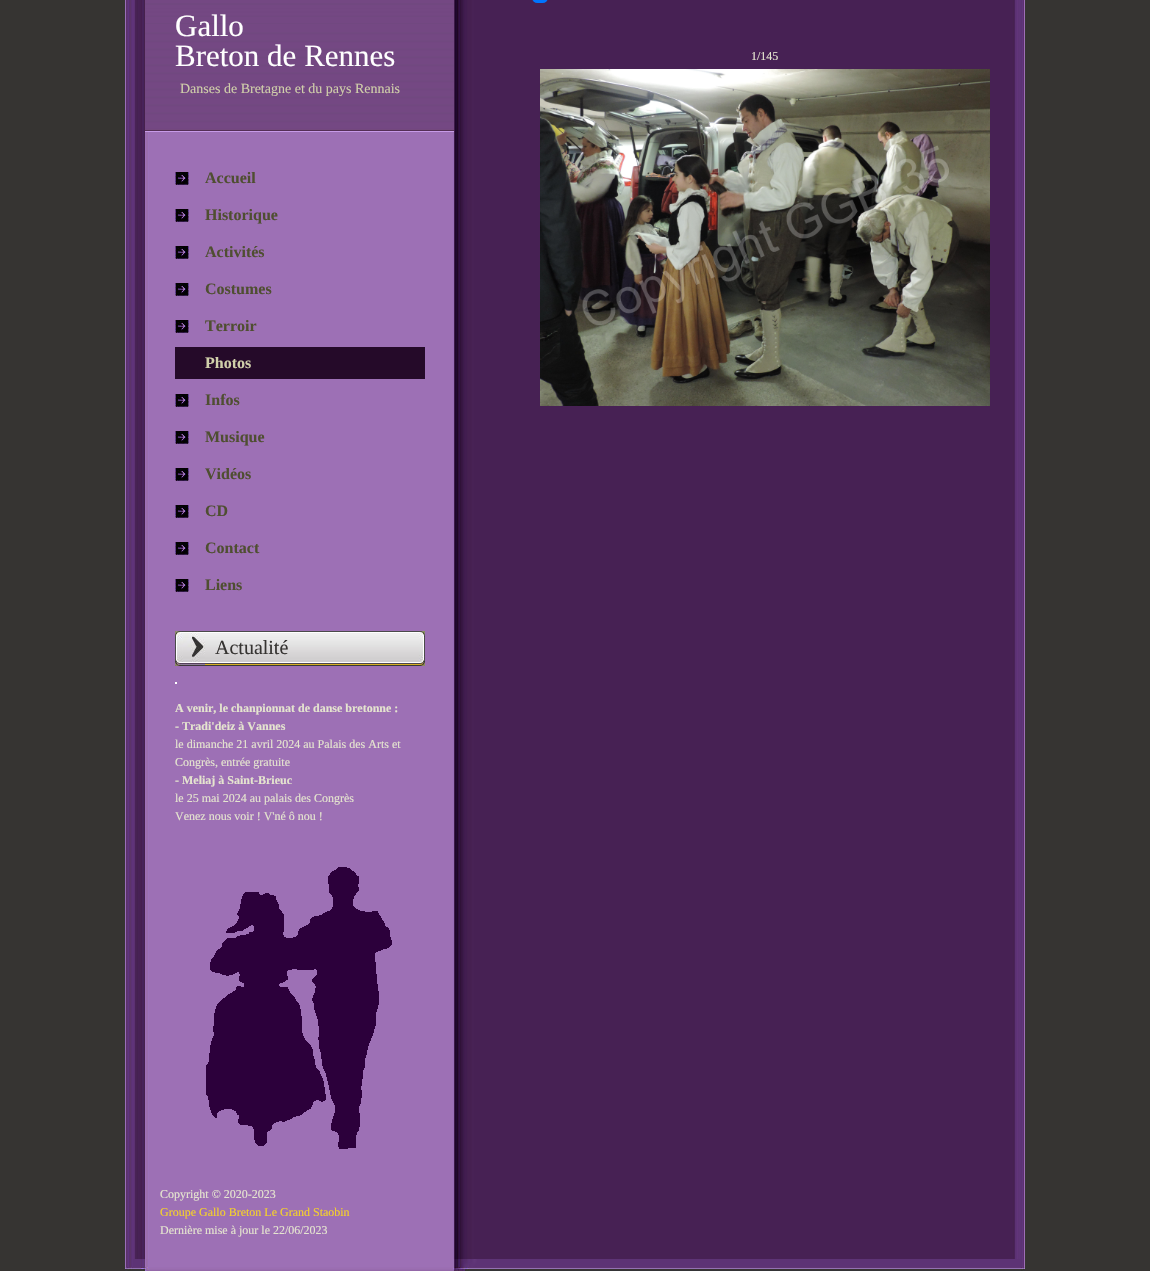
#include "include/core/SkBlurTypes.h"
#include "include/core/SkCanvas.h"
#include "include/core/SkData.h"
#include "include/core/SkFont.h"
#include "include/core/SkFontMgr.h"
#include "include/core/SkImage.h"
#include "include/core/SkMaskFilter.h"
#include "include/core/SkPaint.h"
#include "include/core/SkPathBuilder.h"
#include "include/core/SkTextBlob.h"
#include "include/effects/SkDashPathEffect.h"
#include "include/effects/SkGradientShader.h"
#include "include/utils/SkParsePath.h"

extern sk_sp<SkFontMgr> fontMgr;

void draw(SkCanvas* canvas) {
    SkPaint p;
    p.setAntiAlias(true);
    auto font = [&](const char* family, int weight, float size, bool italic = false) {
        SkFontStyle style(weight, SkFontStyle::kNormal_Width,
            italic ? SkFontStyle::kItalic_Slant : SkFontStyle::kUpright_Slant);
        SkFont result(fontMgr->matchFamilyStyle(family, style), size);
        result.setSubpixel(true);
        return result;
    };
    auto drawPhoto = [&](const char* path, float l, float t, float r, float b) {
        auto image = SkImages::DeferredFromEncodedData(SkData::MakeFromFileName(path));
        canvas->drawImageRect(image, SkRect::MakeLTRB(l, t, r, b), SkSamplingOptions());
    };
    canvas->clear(0xFF363432);
    drawPhoto("media/1.png", 125, 0, 1025, 1259);
    drawPhoto("media/2.png", 206, 867, 392, 1149);
    drawPhoto("media/3.png", 145, 0, 454, 132);
    auto font1 = font("Liberation Serif", 400, 31);
    p.setColor(0xFFFFFFFF);
    canvas->drawString("Gallo", 175, 36, font1, p);
    canvas->drawString("Breton de Rennes", 175, 66, font1, p);
    auto font2 = font("Liberation Serif", 400, 14);
    p.setColor(0xFFD0CFAA);
    canvas->drawString("Danses de Bretagne et du pays Rennais", 180, 93, font2, p);
    drawPhoto("media/4.png", 175, 172, 189, 185);
    auto font3 = font("Liberation Serif", 700, 16);
    p.setColor(0xFF4F4E31);
    canvas->drawString("Accueil", 205, 183, font3, p);
    drawPhoto("media/4.png", 175, 209, 189, 222);
    canvas->drawString("Historique", 205, 220, font3, p);
    drawPhoto("media/4.png", 175, 246, 189, 259);
    canvas->drawString("Activités", 205, 257, font3, p);
    drawPhoto("media/4.png", 175, 283, 189, 296);
    canvas->drawString("Costumes", 205, 294, font3, p);
    drawPhoto("media/4.png", 175, 320, 189, 333);
    canvas->drawString("Terroir", 205, 331, font3, p);
    p.setColor(0xFF250A29);
    canvas->drawRect(SkRect::MakeLTRB(175, 347, 425, 379), p);
    p.setColor(0xFFD0CFAA);
    canvas->drawString("Photos", 205, 368, font3, p);
    drawPhoto("media/4.png", 175, 394, 189, 407);
    p.setColor(0xFF4F4E31);
    canvas->drawString("Infos", 205, 405, font3, p);
    drawPhoto("media/4.png", 175, 431, 189, 444);
    canvas->drawString("Musique", 205, 442, font3, p);
    drawPhoto("media/4.png", 175, 468, 189, 481);
    canvas->drawString("Vidéos", 205, 479, font3, p);
    drawPhoto("media/4.png", 175, 505, 189, 518);
    canvas->drawString("CD", 205, 516, font3, p);
    drawPhoto("media/4.png", 175, 542, 189, 555);
    canvas->drawString("Contact", 205, 553, font3, p);
    drawPhoto("media/4.png", 175, 579, 189, 592);
    canvas->drawString("Liens", 205, 590, font3, p);
    drawPhoto("media/5.png", 205, 631, 425, 666);
    drawPhoto("media/6.png", 175, 631, 205, 666);
    auto font4 = font("Liberation Serif", 400, 20);
    p.setColor(0xFF363432);
    canvas->drawString("Actualité", 215, 654, font4, p);
    p.setColor(0xFFFFFFFF);
    canvas->drawRect(SkRect::MakeLTRB(175, 682, 177, 684), p);
    auto font5 = font("Liberation Serif", 700, 12);
    p.setColor(0xFFE5E5CF);
    canvas->drawString("A venir, le chanpionnat de danse bretonne :", 175, 712, font5, p);
    canvas->drawString("- Tradi'deiz à Vannes", 175, 730, font5, p);
    auto font6 = font("Liberation Serif", 400, 12);
    canvas->drawString("le dimanche 21 avril 2024 au Palais des Arts et", 175, 748, font6, p);
    canvas->drawString("Congrès, entrée gratuite", 175, 766, font6, p);
    canvas->drawString("- Meliaj à Saint-Brieuc", 175, 784, font5, p);
    canvas->drawString("le 25 mai 2024 au palais des Congrès", 175, 802, font6, p);
    canvas->drawString("Venez nous voir ! V'né ô nou !", 175, 820, font6, p);
    p.setColor(0xFF0075FF);
    canvas->drawRoundRect(SkRect::MakeLTRB(532, -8, 548, 3), 8, 8, p);
    p.setColor(0xFFE5E5CF);
    canvas->drawString("1/145", 751, 60, font6, p);
    drawPhoto("media/7.png", 540, 69, 990, 406);
    drawPhoto("media/8.png", 125, 1259, 1025, 1271);
    canvas->drawString("Copyright © 2020-2023", 160, 1198, font6, p);
    p.setColor(0xFFF6D229);
    canvas->drawString("Groupe Gallo Breton Le Grand Staobin", 160, 1216, font6, p);
    p.setColor(0xFFE5E5CF);
    canvas->drawString("Dernière mise à jour le 22/06/2023", 160, 1234, font6, p);
}
